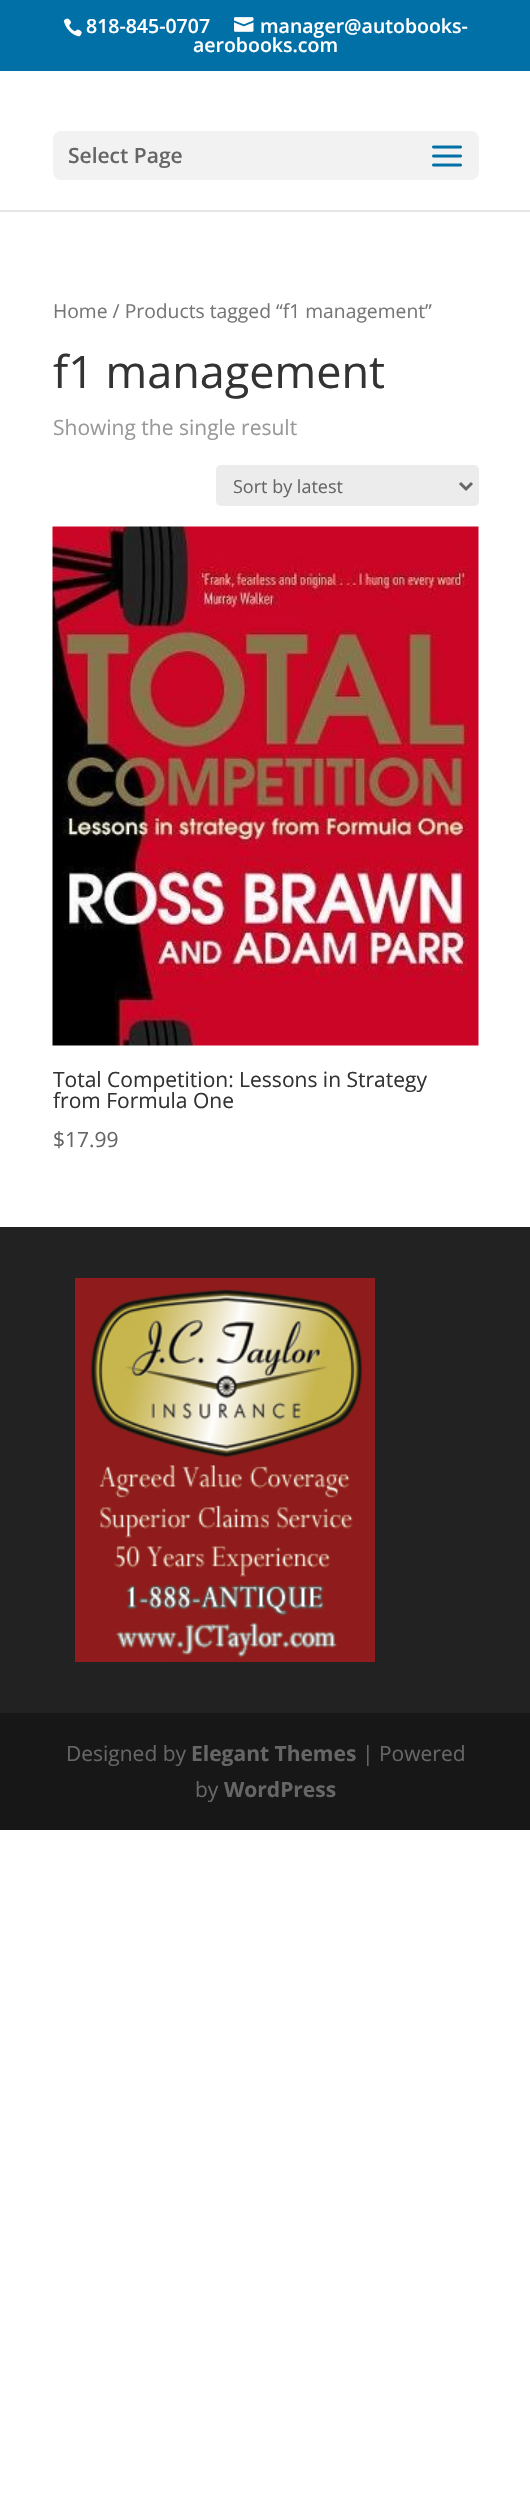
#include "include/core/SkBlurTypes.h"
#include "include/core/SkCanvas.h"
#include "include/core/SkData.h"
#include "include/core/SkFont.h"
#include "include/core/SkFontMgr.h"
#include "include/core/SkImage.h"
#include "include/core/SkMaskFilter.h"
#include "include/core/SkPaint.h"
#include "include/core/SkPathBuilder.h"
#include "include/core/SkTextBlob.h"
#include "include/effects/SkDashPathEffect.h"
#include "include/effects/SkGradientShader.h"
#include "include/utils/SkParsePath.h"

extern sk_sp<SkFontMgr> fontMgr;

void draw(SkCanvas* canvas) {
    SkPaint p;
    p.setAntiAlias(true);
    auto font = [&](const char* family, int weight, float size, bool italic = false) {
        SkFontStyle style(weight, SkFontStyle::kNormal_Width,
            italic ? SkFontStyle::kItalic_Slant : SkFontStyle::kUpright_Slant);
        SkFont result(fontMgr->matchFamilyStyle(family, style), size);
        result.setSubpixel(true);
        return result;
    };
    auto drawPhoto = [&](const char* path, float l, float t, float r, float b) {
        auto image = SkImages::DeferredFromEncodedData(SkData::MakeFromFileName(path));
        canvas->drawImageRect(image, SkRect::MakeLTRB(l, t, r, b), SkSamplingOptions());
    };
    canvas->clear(0xFFFFFFFF);
    p.setColor(0xFF0070A6);
    canvas->drawRect(SkRect::MakeLTRB(0, 0, 530, 71), p);
    drawPhoto("media/1.png", 63, 18, 82, 37);
    auto font1 = font("Open Sans", 600, 19.5f);
    p.setColor(0xFFFFFFFF);
    canvas->drawString("818-845-0707", 86, 33, font1, p);
    drawPhoto("media/2.png", 234, 17, 254, 32);
    canvas->drawString("manager@autobooks-", 260, 33, font1, p);
    canvas->drawString("aerobooks.com", 193, 52, font1, p);
    p.setColor(0xFFE6E6E6);
    canvas->drawRect(SkRect::MakeLTRB(0, 210, 530, 212), p);
    p.setColor(0xFFF2F2F2);
    canvas->drawRoundRect(SkRect::MakeLTRB(53, 131, 479, 180), 8, 8, p);
    auto font2 = font("Open Sans", 600, 21);
    p.setColor(0xFF666666);
    canvas->drawString("Select Page", 68, 163, font2, p);
    drawPhoto("media/3.png", 432, 145, 462, 167);
    auto font3 = font("Open Sans", 400, 19.3f);
    p.setColor(0xFF767676);
    canvas->drawString("Home / Products tagged “f1 management”", 53, 318, font3, p);
    auto font4 = font("Open Sans", 400, 45);
    p.setColor(0xFF333333);
    canvas->drawString("f1 management", 53, 388, font4, p);
    auto font5 = font("Open Sans", 400, 21);
    p.setColor(0xFF999999);
    canvas->drawString("Showing the single result", 53, 435, font5, p);
    p.setColor(0xFFECECEC);
    canvas->drawRoundRect(SkRect::MakeLTRB(216, 465, 479, 506), 5, 5, p);
    p.setStyle(SkPaint::kStroke_Style);
    p.setStrokeWidth(3);
    p.setColor(0xFF666666);
    canvas->drawPath(SkPathBuilder().moveTo(460, 483).lineTo(466, 489).lineTo(472, 483).detach(), p);
    auto font6 = font("Open Sans", 400, 18);
    p.setStyle(SkPaint::kFill_Style);
    canvas->drawString("Sort by latest", 233, 493, font6, p);
    drawPhoto("media/4.png", 52, 526, 479, 1046);
    p.setColor(0xFF333333);
    canvas->drawString("Total Competition: Lessons in Strategy", 53, 1087, font5, p);
    canvas->drawString("from Formula One", 53, 1108, font5, p);
    p.setColor(0xFF666666);
    canvas->drawString("$17.99", 53, 1147, font5, p);
    p.setColor(0xFF222222);
    canvas->drawRect(SkRect::MakeLTRB(0, 1227, 530, 1713), p);
    drawPhoto("media/5.png", 75, 1278, 375, 1662);
    p.setColor(0xFF171717);
    canvas->drawRect(SkRect::MakeLTRB(0, 1713, 530, 1830), p);
    p.setColor(0xFF666666);
    canvas->drawString("Designed by", 66, 1761, font5, p);
    auto font7 = font("Open Sans", 700, 21);
    canvas->drawString("Elegant Themes", 191, 1761, font7, p);
    canvas->drawString("| Powered", 362, 1761, font5, p);
    canvas->drawString("by", 195, 1797, font5, p);
    canvas->drawString("WordPress", 224, 1797, font7, p);
}
